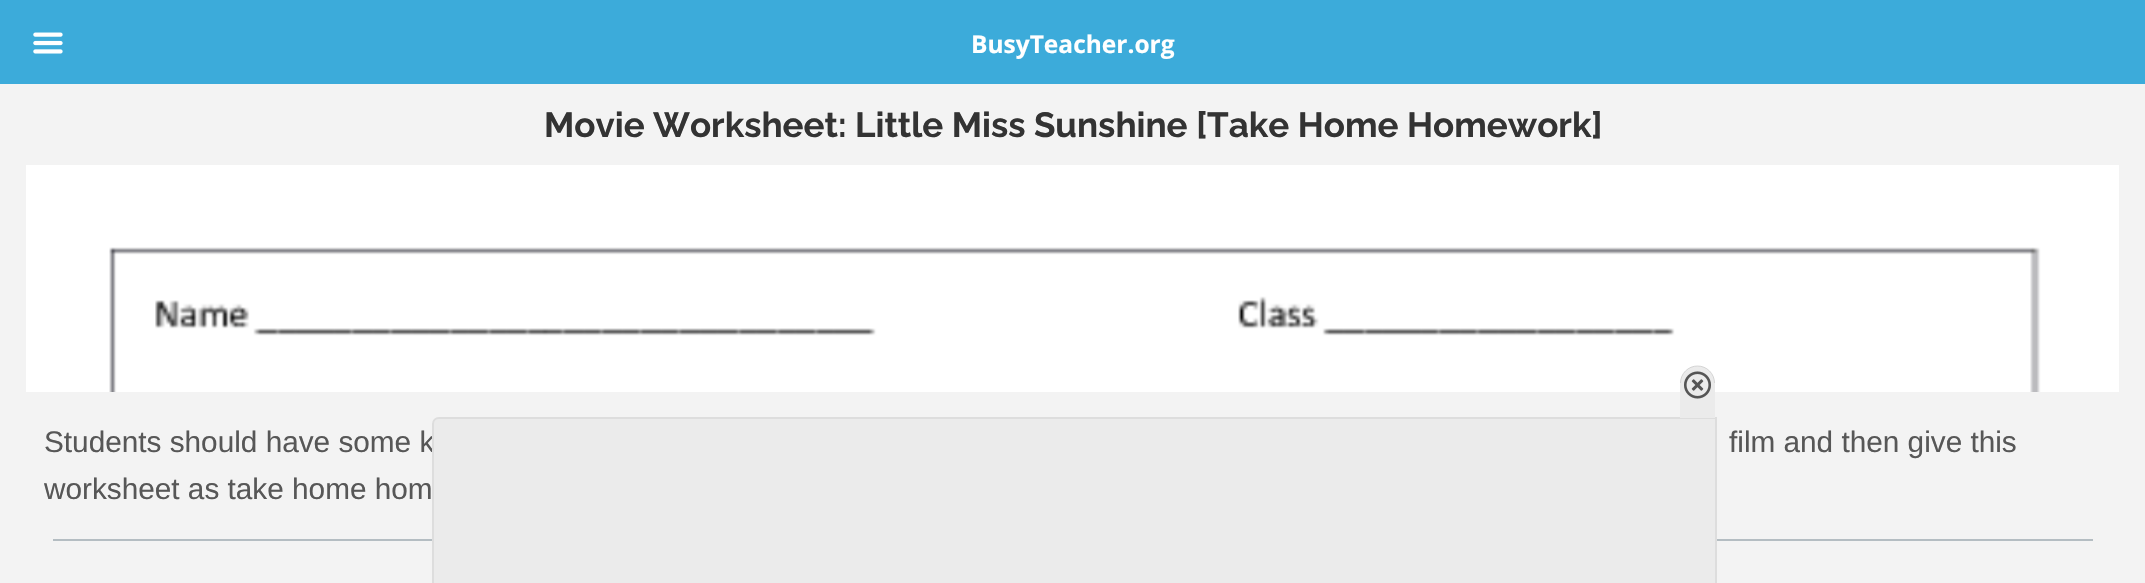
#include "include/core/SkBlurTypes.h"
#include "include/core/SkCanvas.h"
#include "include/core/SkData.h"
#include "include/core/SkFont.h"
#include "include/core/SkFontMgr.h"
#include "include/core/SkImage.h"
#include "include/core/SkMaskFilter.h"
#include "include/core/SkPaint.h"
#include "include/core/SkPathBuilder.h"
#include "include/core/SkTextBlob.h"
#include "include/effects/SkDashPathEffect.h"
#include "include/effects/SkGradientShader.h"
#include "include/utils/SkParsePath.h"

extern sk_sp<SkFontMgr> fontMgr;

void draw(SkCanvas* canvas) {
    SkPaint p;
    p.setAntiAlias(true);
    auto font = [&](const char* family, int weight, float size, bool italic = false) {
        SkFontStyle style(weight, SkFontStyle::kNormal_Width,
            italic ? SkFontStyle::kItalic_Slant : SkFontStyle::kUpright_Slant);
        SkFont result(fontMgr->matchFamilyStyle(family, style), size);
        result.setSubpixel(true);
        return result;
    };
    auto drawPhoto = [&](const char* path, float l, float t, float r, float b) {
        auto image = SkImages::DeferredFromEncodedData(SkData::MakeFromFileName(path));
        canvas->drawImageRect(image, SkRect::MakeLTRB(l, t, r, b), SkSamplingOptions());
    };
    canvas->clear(0xFFF3F3F3);
    p.setColor(0xFF3CABDA);
    canvas->drawRect(SkRect::MakeLTRB(0, 0, 2145, 84), p);
    drawPhoto("media/1.png", 33, 32, 63, 54);
    auto font1 = font("Open Sans", 700, 24.5f);
    p.setColor(0xFFFFFFFF);
    canvas->drawString("BusyTeacher.org", 971, 53, font1, p);
    auto font2 = font("Raleway", 700, 35);
    p.setColor(0xFF333333);
    canvas->drawString("Movie Worksheet: Little Miss Sunshine [Take Home Homework]", 544, 137, font2, p);
    drawPhoto("media/2.png", 26, 165, 2119, 392);
    auto font3 = font("Liberation Sans", 400, 29.75f);
    p.setColor(0xFF575757);
    {
        const struct { const char* s; float x, y; } items[] = {
            {"Students should have some k", 44, 452},
            {"film and then give this", 1729, 452},
            {"worksheet as take home hom", 44, 499},
        };
        for (auto [s, x, y] : items) {
            canvas->drawString(s, x, y, font3, p);
        }
    }
    p.setColor(0xFFB4BDC2);
    canvas->drawRect(SkRect::MakeLTRB(53, 539, 2093, 541), p);
    p.setColor(0xFFEBEBEB);
    canvas->drawPath(SkPathBuilder().moveTo(439, 418).lineTo(1716, 418).lineTo(1716, 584).lineTo(433, 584).lineTo(433, 424).cubicTo(433, 420.5f, 435.5f, 418, 439, 418).close().detach(), p);
    p.setStyle(SkPaint::kStroke_Style);
    p.setStrokeWidth(2);
    p.setColor(0xFFDDDDDD);
    canvas->drawPath(SkPathBuilder().moveTo(439, 418).lineTo(1716, 418).lineTo(1716, 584).lineTo(433, 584).lineTo(433, 424).cubicTo(433, 420.5f, 435.5f, 418, 439, 418).close().detach(), p);
    p.setStyle(SkPaint::kFill_Style);
    p.setColor(0xFFEBEBEB);
    canvas->drawCircle(1697.5f, 383, 17, p);
    p.setStyle(SkPaint::kStroke_Style);
    p.setStrokeWidth(0.8f);
    p.setColor(0xFFCCCCCC);
    canvas->drawCircle(1697.5f, 383, 17, p);
    p.setStyle(SkPaint::kFill_Style);
    p.setColor(0xFFEBEBEB);
    canvas->drawRect(SkRect::MakeLTRB(1680, 383, 1715, 418), p);
    drawPhoto("media/3.png", 1684, 371, 1711, 399);
}
